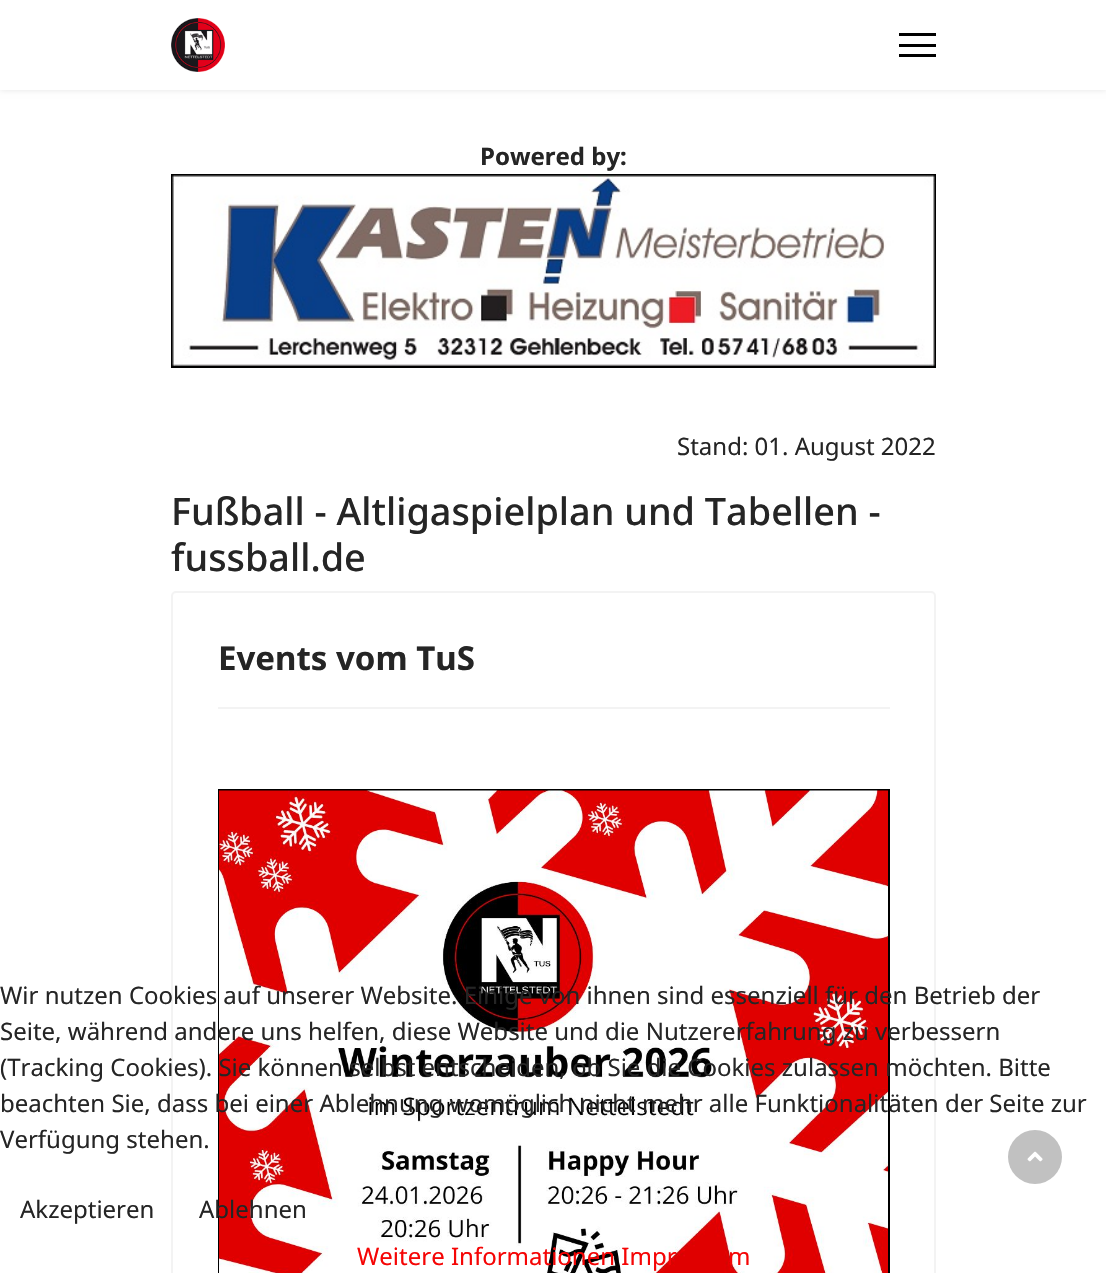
#include "include/core/SkBlurTypes.h"
#include "include/core/SkCanvas.h"
#include "include/core/SkData.h"
#include "include/core/SkFont.h"
#include "include/core/SkFontMgr.h"
#include "include/core/SkImage.h"
#include "include/core/SkMaskFilter.h"
#include "include/core/SkPaint.h"
#include "include/core/SkPathBuilder.h"
#include "include/core/SkTextBlob.h"
#include "include/effects/SkDashPathEffect.h"
#include "include/effects/SkGradientShader.h"
#include "include/utils/SkParsePath.h"

extern sk_sp<SkFontMgr> fontMgr;

void draw(SkCanvas* canvas) {
    SkPaint p;
    p.setAntiAlias(true);
    auto font = [&](const char* family, int weight, float size, bool italic = false) {
        SkFontStyle style(weight, SkFontStyle::kNormal_Width,
            italic ? SkFontStyle::kItalic_Slant : SkFontStyle::kUpright_Slant);
        SkFont result(fontMgr->matchFamilyStyle(family, style), size);
        result.setSubpixel(true);
        return result;
    };
    auto drawPhoto = [&](const char* path, float l, float t, float r, float b) {
        auto image = SkImages::DeferredFromEncodedData(SkData::MakeFromFileName(path));
        canvas->drawImageRect(image, SkRect::MakeLTRB(l, t, r, b), SkSamplingOptions());
    };
    canvas->clear(0xFFFFFFFF);
    p.setColor(0x1A000000);
    p.setMaskFilter(SkMaskFilter::MakeBlur(kNormal_SkBlurStyle, 3));
    canvas->drawRect(SkRect::MakeLTRB(0, 0, 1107, 90), p);
    p.setMaskFilter(nullptr);
    p.setColor(0xFFFFFFFF);
    canvas->drawRect(SkRect::MakeLTRB(0, 0, 1106, 90), p);
    drawPhoto("media/1.png", 171, 18, 225, 72);
    {
        const struct { float l, t, r, b; SkColor color; } items[] = {
            {899, 33, 936, 36, 0xFF000000},
            {899, 44, 936, 47, 0xFF000000},
            {899, 54, 936, 57, 0xFF000000},
        };
        for (auto [l, t, r, b, color] : items) {
            p.setColor(color);
            canvas->drawRect(SkRect::MakeLTRB(l, t, r, b), p);
        }
    }
    auto font1 = font("Noto Sans", 700, 24);
    p.setColor(0xFF252525);
    canvas->drawString("Powered by:", 480, 165, font1, p);
    p.setStyle(SkPaint::kStroke_Style);
    p.setStrokeWidth(2);
    p.setColor(0xFF000000);
    canvas->drawRect(SkRect::MakeLTRB(172, 175, 935, 367), p);
    drawPhoto("media/2.png", 172, 175, 935, 366);
    auto font2 = font("Noto Sans", 400, 24);
    p.setStyle(SkPaint::kFill_Style);
    p.setColor(0xFF252525);
    canvas->drawString("Stand: 01. August 2022", 677, 455, font2, p);
    auto font3 = font("Noto Sans", 500, 37.8f);
    canvas->drawString("Fußball - Altligaspielplan und Tabellen -", 171, 525, font3, p);
    canvas->drawString("fussball.de", 171, 571, font3, p);
    p.setStyle(SkPaint::kStroke_Style);
    p.setColor(0xFFF3F3F3);
    canvas->drawRoundRect(SkRect::MakeLTRB(172, 592, 935, 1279), 4, 4, p);
    p.setStyle(SkPaint::kFill_Style);
    canvas->drawRect(SkRect::MakeLTRB(218, 707, 890, 709), p);
    auto font4 = font("Noto Sans", 700, 33);
    p.setColor(0xFF252525);
    canvas->drawString("Events vom TuS", 218, 670, font4, p);
    p.setStyle(SkPaint::kStroke_Style);
    p.setColor(0xFF000000);
    canvas->drawRect(SkRect::MakeLTRB(219, 790, 889, 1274), p);
    drawPhoto("media/3.png", 219, 790, 888, 1273);
    p.setStyle(SkPaint::kFill_Style);
    p.setColor(0xFF252525);
    {
        const struct { const char* s; float x, y; } items[] = {
            {"Wir nutzen Cookies auf unserer Website. Einige von ihnen sind essenziell für den Betrieb der", 0, 1004},
            {"Seite, während andere uns helfen, diese Website und die Nutzererfahrung zu verbessern", 0, 1040},
            {"(Tracking Cookies). Sie können selbst entscheiden, ob Sie die Cookies zulassen möchten. Bitte", 0, 1076},
            {"beachten Sie, dass bei einer Ablehnung womöglich nicht mehr alle Funktionalitäten der Seite zur", 0, 1112},
            {"Verfügung stehen.", 0, 1148},
            {"Akzeptieren", 20, 1218},
            {"Ablehnen", 199, 1218},
        };
        for (auto [s, x, y] : items) {
            canvas->drawString(s, x, y, font2, p);
        }
    }
    p.setColor(0xFFF50505);
    canvas->drawString("Weitere Informationen Impr", 357, 1265, font2, p);
    canvas->drawString("m", 728, 1265, font2, p);
    p.setColor(0xFFC1C1C1);
    canvas->drawCircle(1035, 1157, 27, p);
    drawPhoto("media/4.png", 1027, 1151, 1043, 1162);
}
